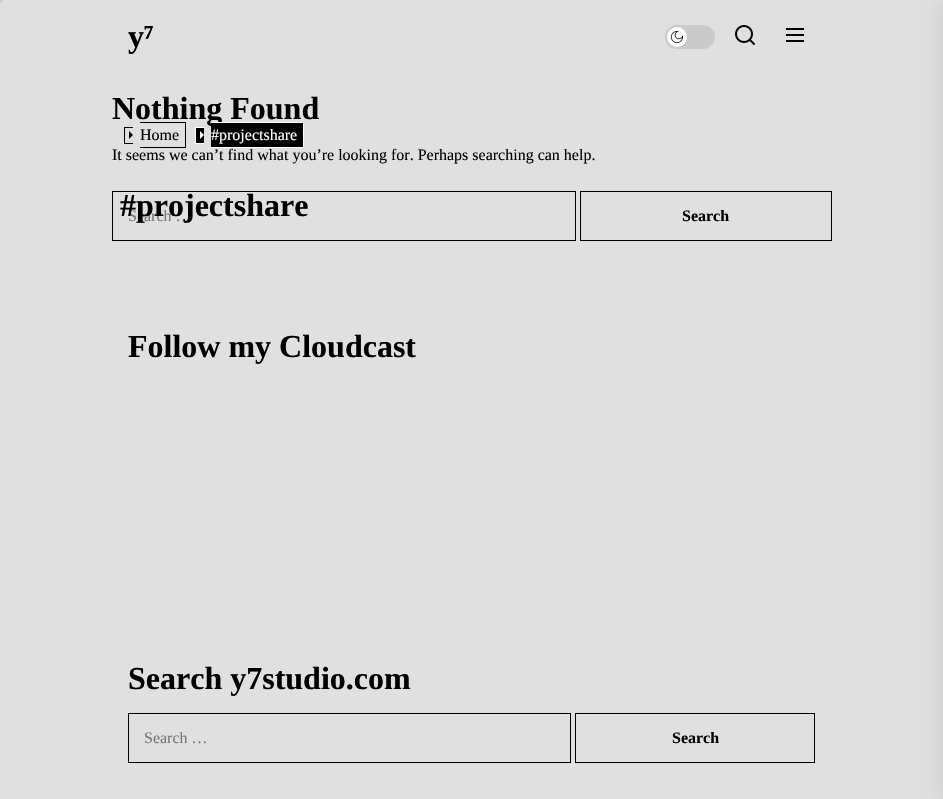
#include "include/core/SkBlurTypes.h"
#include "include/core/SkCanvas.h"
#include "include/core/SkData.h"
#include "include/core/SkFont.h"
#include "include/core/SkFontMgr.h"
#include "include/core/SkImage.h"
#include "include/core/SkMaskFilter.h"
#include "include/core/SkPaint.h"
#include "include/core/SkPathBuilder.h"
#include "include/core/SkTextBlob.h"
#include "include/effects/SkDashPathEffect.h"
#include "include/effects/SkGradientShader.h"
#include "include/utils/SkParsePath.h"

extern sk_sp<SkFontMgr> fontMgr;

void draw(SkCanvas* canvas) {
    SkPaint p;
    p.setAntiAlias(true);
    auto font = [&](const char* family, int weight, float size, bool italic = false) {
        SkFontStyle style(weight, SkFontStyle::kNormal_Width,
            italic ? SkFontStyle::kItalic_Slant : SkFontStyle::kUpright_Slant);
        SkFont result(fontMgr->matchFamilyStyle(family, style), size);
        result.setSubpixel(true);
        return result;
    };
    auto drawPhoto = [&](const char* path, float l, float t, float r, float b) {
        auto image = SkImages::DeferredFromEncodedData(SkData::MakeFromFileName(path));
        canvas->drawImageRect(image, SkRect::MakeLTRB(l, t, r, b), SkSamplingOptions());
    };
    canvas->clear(0xFFE0E0E0);
    p.setColor(0xFFCED0D4);
    canvas->drawCircle(0, 0, 3, p);
    auto font1 = font("Liberation Serif", 700, 32);
    p.setColor(0xFF000000);
    canvas->drawString("y⁷", 128, 47, font1, p);
    p.setColor(0xFFCACACA);
    canvas->drawRoundRect(SkRect::MakeLTRB(665, 25, 715, 49), 12, 12, p);
    p.setColor(0xFFFFFFFF);
    canvas->drawCircle(677, 37, 10, p);
    drawPhoto("media/1.png", 671, 31, 683, 43);
    drawPhoto("media/2.png", 735, 25, 755, 45);
    drawPhoto("media/3.png", 786, 28, 804, 42);
    p.setColor(0xFF000000);
    canvas->drawString("Nothing Found", 112, 119, font1, p);
    auto font2 = font("Liberation Serif", 400, 16);
    canvas->drawString("It seems we can’t find what you’re looking for. Perhaps searching can help.", 112, 160, font2, p);
    p.setStyle(SkPaint::kStroke_Style);
    p.setStrokeWidth(1);
    canvas->drawRect(SkRect::MakeLTRB(112.5f, 191.5f, 575.5f, 240.5f), p);
    p.setStyle(SkPaint::kFill_Style);
    p.setColor(0xFF757575);
    canvas->drawString("Search …", 128, 221, font2, p);
    p.setStyle(SkPaint::kStroke_Style);
    p.setColor(0xFF000000);
    canvas->drawRect(SkRect::MakeLTRB(580.5f, 191.5f, 831.5f, 240.5f), p);
    auto font3 = font("Liberation Serif", 700, 16);
    p.setStyle(SkPaint::kFill_Style);
    canvas->drawString("Search", 682, 221, font3, p);
    {
        const struct { float l, t, r, b; SkColor color; } items[] = {
            {124, 127, 133, 128, 0xFF000000},
            {124, 143, 133, 144, 0xFF000000},
            {124, 127, 125, 144, 0xFF000000},
            {140, 122, 186, 123, 0xFF000000},
            {185, 122, 186, 148, 0xFF000000},
            {140, 147, 186, 148, 0xFF000000},
        };
        for (auto [l, t, r, b, color] : items) {
            p.setColor(color);
            canvas->drawRect(SkRect::MakeLTRB(l, t, r, b), p);
        }
    }
    canvas->drawPath(SkPathBuilder().moveTo(129, 139).lineTo(129, 131).lineTo(133, 135).close().detach(), p);
    canvas->drawString("Home", 140, 140, font2, p);
    {
        const struct { float l, t, r, b; SkColor color; } items[] = {
            {196, 128, 204, 143, 0xFF000000},
            {195, 127, 204, 128, 0xFFFFFFFF},
            {195, 143, 204, 144, 0xFFFFFFFF},
            {195, 127, 196, 144, 0xFFFFFFFF},
            {211, 123, 303, 147, 0xFF000000},
            {211, 122, 304, 123, 0xFFFFFFFF},
            {303, 122, 304, 148, 0xFFFFFFFF},
            {211, 147, 304, 148, 0xFFFFFFFF},
        };
        for (auto [l, t, r, b, color] : items) {
            p.setColor(color);
            canvas->drawRect(SkRect::MakeLTRB(l, t, r, b), p);
        }
    }
    canvas->drawPath(SkPathBuilder().moveTo(200, 139).lineTo(200, 131).lineTo(204, 135).close().detach(), p);
    canvas->drawString("#projectshare", 211, 140, font2, p);
    p.setColor(0xFF000000);
    canvas->drawString("#projectshare", 120, 216, font1, p);
    p.setColor(0x1A000000);
    p.setMaskFilter(SkMaskFilter::MakeBlur(kNormal_SkBlurStyle, 10));
    canvas->drawRect(SkRect::MakeLTRB(943, 0, 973, 799), p);
    p.setMaskFilter(nullptr);
    p.setColor(0xFF000000);
    canvas->drawString("Follow my Cloudcast", 128, 357, font1, p);
    canvas->drawString("Search y7studio.com", 128, 689, font1, p);
    p.setStyle(SkPaint::kStroke_Style);
    canvas->drawRect(SkRect::MakeLTRB(128.5f, 713.5f, 570.5f, 762.5f), p);
    p.setStyle(SkPaint::kFill_Style);
    p.setColor(0xFF757575);
    canvas->drawString("Search …", 144, 743, font2, p);
    p.setStyle(SkPaint::kStroke_Style);
    p.setColor(0xFF000000);
    canvas->drawRect(SkRect::MakeLTRB(575.5f, 713.5f, 814.5f, 762.5f), p);
    p.setStyle(SkPaint::kFill_Style);
    canvas->drawString("Search", 672, 743, font3, p);
}
